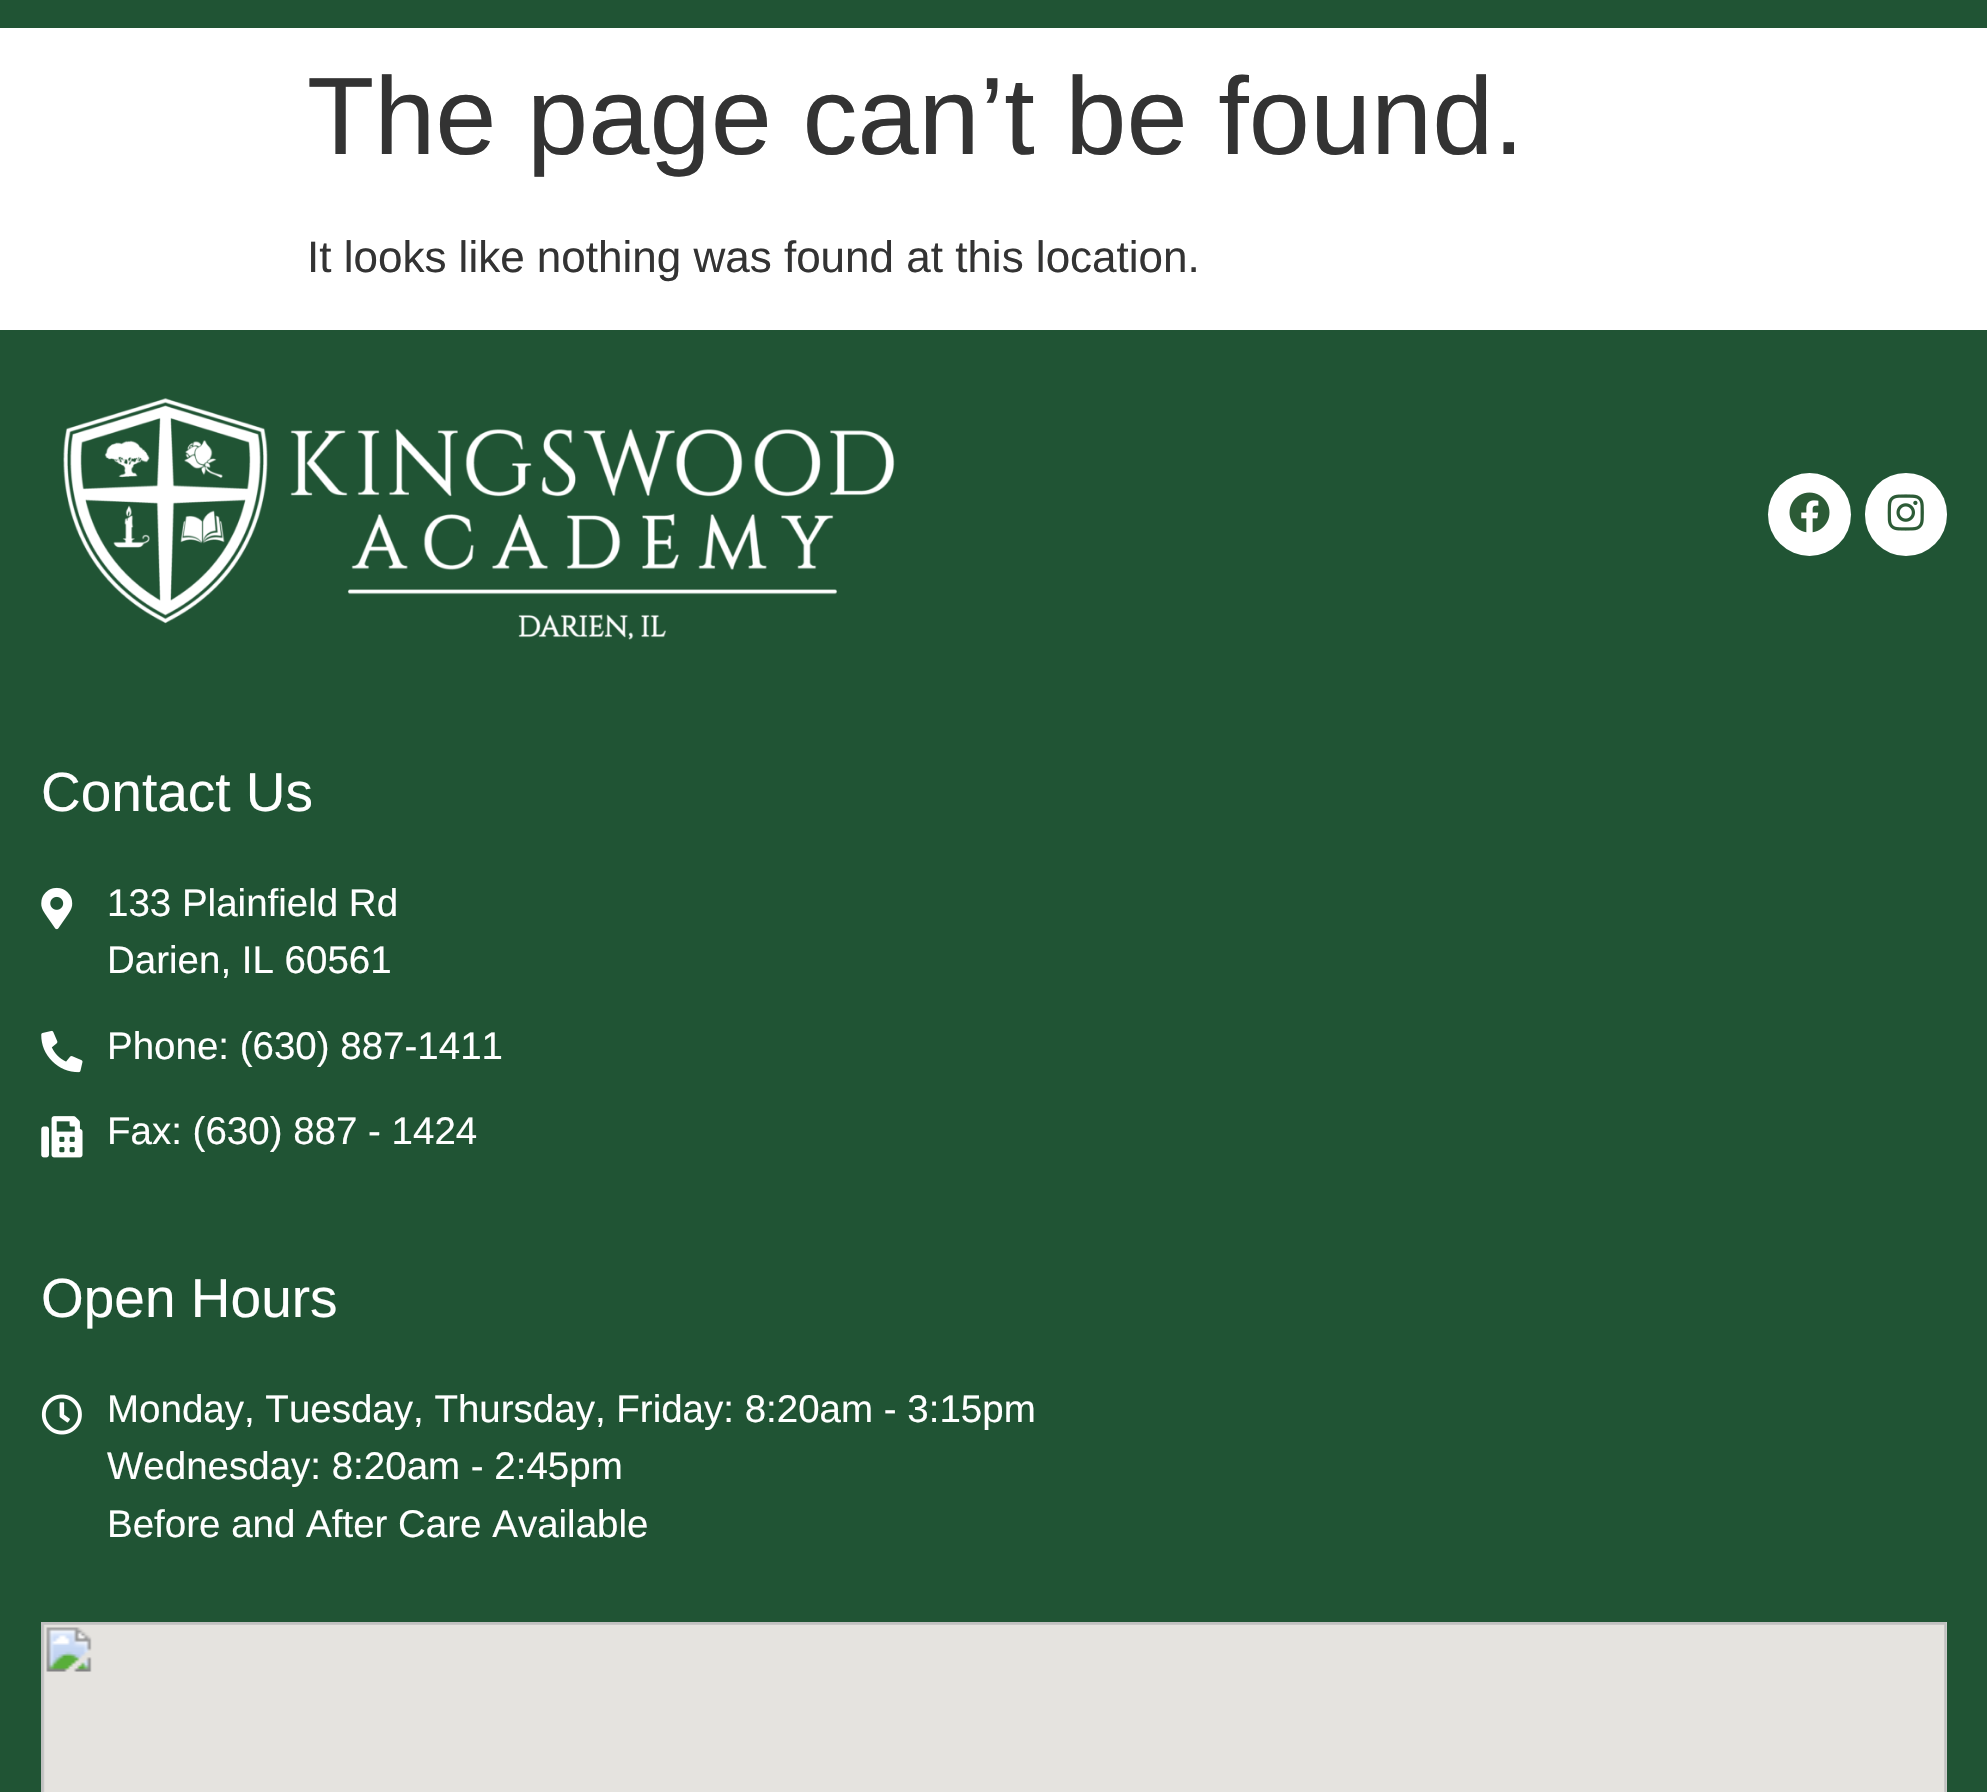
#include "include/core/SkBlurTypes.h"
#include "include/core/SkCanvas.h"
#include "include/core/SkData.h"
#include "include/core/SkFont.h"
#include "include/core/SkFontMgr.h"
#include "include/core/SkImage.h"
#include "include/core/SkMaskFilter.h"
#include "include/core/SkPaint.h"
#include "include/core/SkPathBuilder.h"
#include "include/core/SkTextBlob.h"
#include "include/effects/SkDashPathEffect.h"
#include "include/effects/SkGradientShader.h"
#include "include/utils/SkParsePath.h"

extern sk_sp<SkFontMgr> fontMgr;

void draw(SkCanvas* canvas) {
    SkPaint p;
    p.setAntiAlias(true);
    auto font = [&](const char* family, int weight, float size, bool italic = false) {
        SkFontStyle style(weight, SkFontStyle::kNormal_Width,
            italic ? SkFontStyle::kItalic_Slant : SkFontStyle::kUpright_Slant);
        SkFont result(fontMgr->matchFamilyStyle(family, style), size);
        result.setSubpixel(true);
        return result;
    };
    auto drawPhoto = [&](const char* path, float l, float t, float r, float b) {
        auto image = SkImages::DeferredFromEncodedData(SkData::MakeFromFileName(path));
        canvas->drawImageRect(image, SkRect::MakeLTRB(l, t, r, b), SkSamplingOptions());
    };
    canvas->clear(0xFFFFFFFF);
    p.setColor(0xFF205434);
    canvas->drawRect(SkRect::MakeLTRB(0, 0, 1987, 28), p);
    auto font1 = font("Liberation Sans", 400, 110);
    p.setColor(0xFF333333);
    canvas->drawString("The page can’t be found.", 307, 154, font1, p);
    auto font2 = font("Liberation Sans", 400, 44);
    canvas->drawString("It looks like nothing was found at this location.", 307, 272, font2, p);
    p.setColor(0xFF205434);
    canvas->drawRect(SkRect::MakeLTRB(0, 330, 1987, 1792), p);
    drawPhoto("media/1.png", 63, 398, 895, 640);
    p.setColor(0xFFFFFFFF);
    canvas->drawCircle(1809.5f, 514.5f, 41.5f, p);
    drawPhoto("media/2.png", 1789, 492, 1830, 533);
    canvas->drawRoundRect(SkRect::MakeLTRB(1865, 473, 1947, 556), 41, 41, p);
    drawPhoto("media/3.png", 1887, 494, 1924, 531);
    auto font3 = font("Liberation Sans", 400, 55);
    canvas->drawString("Contact Us", 41, 811, font3, p);
    drawPhoto("media/4.png", 41, 887, 73, 930);
    auto font4 = font("Liberation Sans", 400, 38.5f);
    canvas->drawString("133 Plainfield Rd", 107, 916, font4, p);
    canvas->drawString("Darien, IL 60561", 107, 973, font4, p);
    drawPhoto("media/5.png", 41, 1030, 83, 1073);
    canvas->drawString("Phone: (630) 887-1411", 107, 1059, font4, p);
    drawPhoto("media/6.png", 41, 1116, 83, 1158);
    canvas->drawString("Fax: (630) 887 - 1424", 107, 1144, font4, p);
    canvas->drawString("Open Hours", 41, 1317, font3, p);
    drawPhoto("media/7.png", 41, 1394, 82, 1435);
    {
        const struct { const char* s; float x, y; } items[] = {
            {"Monday, Tuesday, Thursday, Friday: 8:20am - 3:15pm", 107, 1422},
            {"Wednesday: 8:20am - 2:45pm", 107, 1479},
            {"Before and After Care Available", 107, 1537},
        };
        for (auto [s, x, y] : items) {
            canvas->drawString(s, x, y, font4, p);
        }
    }
    drawPhoto("media/8.png", 41, 1622, 1947, 1792);
}
